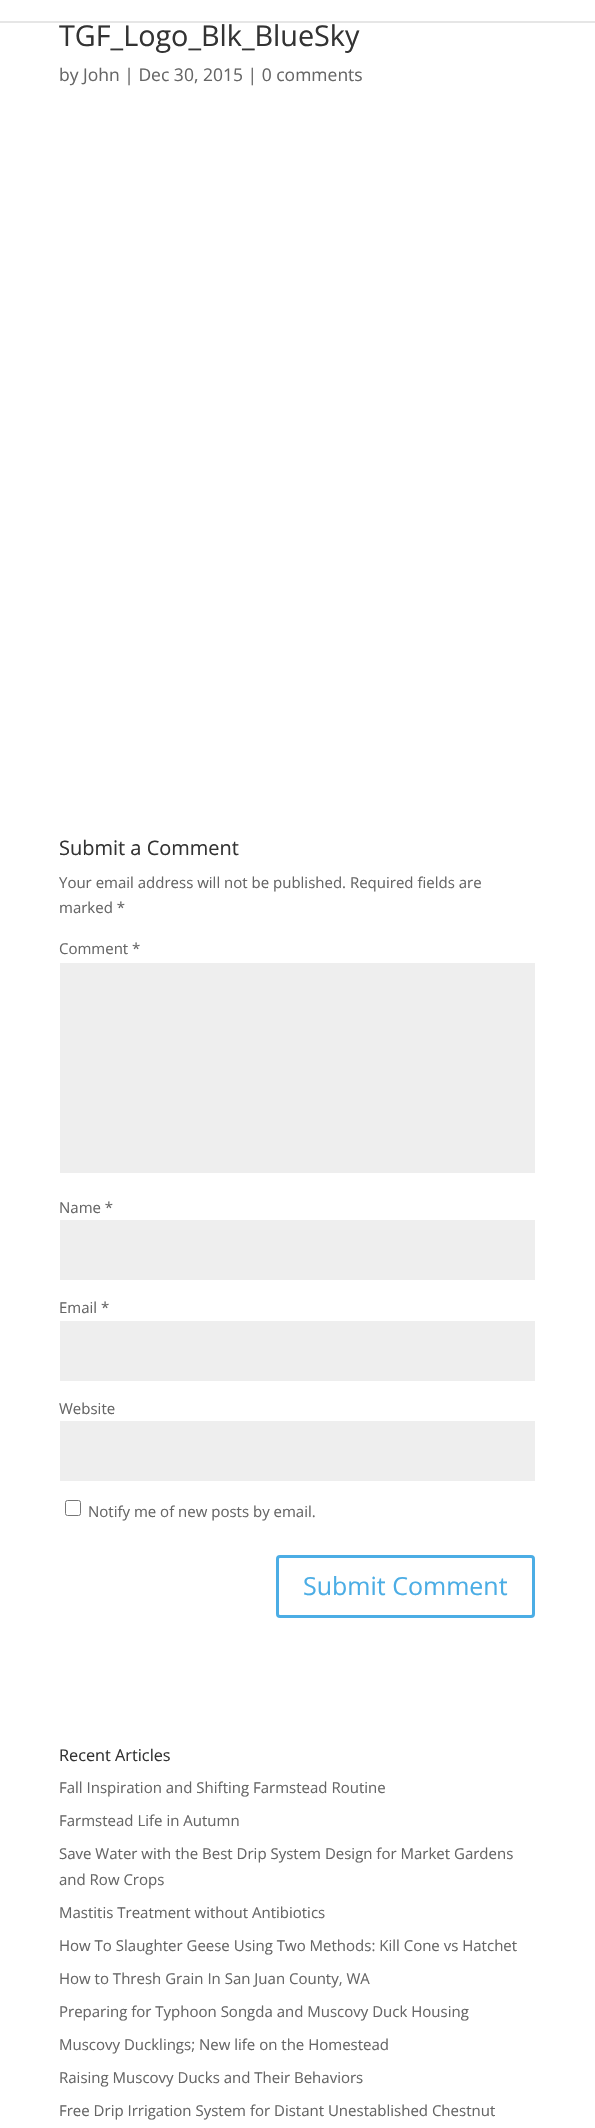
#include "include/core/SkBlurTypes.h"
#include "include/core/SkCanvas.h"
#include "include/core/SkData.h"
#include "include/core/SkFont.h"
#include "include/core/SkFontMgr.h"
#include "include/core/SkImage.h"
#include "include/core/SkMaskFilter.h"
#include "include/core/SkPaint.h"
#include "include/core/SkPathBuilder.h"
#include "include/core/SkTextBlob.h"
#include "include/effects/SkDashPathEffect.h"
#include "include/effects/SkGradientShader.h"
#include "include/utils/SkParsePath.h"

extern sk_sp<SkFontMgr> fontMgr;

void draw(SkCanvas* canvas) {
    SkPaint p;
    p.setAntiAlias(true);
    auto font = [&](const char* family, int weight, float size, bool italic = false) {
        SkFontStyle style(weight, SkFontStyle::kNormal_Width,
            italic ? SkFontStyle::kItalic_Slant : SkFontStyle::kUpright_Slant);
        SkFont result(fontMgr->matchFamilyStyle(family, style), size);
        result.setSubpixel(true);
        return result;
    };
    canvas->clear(0xFFFFFFFF);
    p.setColor(0xFFE6E6E6);
    canvas->drawRect(SkRect::MakeLTRB(0, 21, 595, 23), p);
    auto font1 = font("Open Sans", 400, 28.75f);
    p.setColor(0xFF333333);
    canvas->drawString("TGF_Logo_Blk_BlueSky", 59, 46, font1, p);
    auto font2 = font("Open Sans", 400, 17.5f);
    p.setColor(0xFF666666);
    canvas->drawString("by John | Dec 30, 2015 | 0 comments", 59, 81, font2, p);
    auto font3 = font("Open Sans", 400, 20);
    p.setColor(0xFF333333);
    canvas->drawString("Submit a Comment", 59, 855, font3, p);
    auto font4 = font("Open Sans", 400, 15);
    p.setColor(0xFF666666);
    {
        const struct { const char* s; float x, y; } items[] = {
            {"Your email address will not be published. Required fields are", 59, 888},
            {"marked *", 59, 913},
            {"Comment *", 59, 954},
        };
        for (auto [s, x, y] : items) {
            canvas->drawString(s, x, y, font4, p);
        }
    }
    p.setColor(0xFFEEEEEE);
    canvas->drawRect(SkRect::MakeLTRB(60, 963, 535, 1173), p);
    p.setColor(0xFF666666);
    canvas->drawString("Name *", 59, 1213, font4, p);
    p.setColor(0xFFEEEEEE);
    canvas->drawRect(SkRect::MakeLTRB(60, 1220, 535, 1280), p);
    p.setColor(0xFF666666);
    canvas->drawString("Email *", 59, 1313, font4, p);
    p.setColor(0xFFEEEEEE);
    canvas->drawRect(SkRect::MakeLTRB(60, 1321, 535, 1381), p);
    p.setColor(0xFF666666);
    canvas->drawString("Website", 59, 1414, font4, p);
    p.setColor(0xFFEEEEEE);
    canvas->drawRect(SkRect::MakeLTRB(60, 1421, 535, 1481), p);
    p.setStyle(SkPaint::kStroke_Style);
    p.setStrokeWidth(1);
    p.setColor(0xFF767676);
    canvas->drawRoundRect(SkRect::MakeLTRB(65.5f, 1500.5f, 80.5f, 1515.5f), 2, 2, p);
    p.setStyle(SkPaint::kFill_Style);
    p.setColor(0xFF666666);
    canvas->drawString("Notify me of new posts by email.", 88, 1517, font4, p);
    p.setStyle(SkPaint::kStroke_Style);
    p.setStrokeWidth(3);
    p.setColor(0xFF4BADE5);
    canvas->drawRoundRect(SkRect::MakeLTRB(277.5f, 1556.5f, 533.5f, 1616.5f), 2.5f, 2.5f, p);
    auto font5 = font("Open Sans", 400, 25);
    p.setStyle(SkPaint::kFill_Style);
    canvas->drawString("Submit Comment", 303, 1595, font5, p);
    auto font6 = font("Open Sans", 400, 16.25f);
    p.setColor(0xFF333333);
    canvas->drawString("Recent Articles", 59, 1761, font6, p);
    p.setColor(0xFF666666);
    {
        const struct { const char* s; float x, y; } items[] = {
            {"Fall Inspiration and Shifting Farmstead Routine", 59, 1793},
            {"Farmstead Life in Autumn", 59, 1826},
            {"Save Water with the Best Drip System Design for Market Gardens", 59, 1859},
            {"and Row Crops", 59, 1885},
            {"Mastitis Treatment without Antibiotics", 59, 1918},
            {"How To Slaughter Geese Using Two Methods: Kill Cone vs Hatchet", 59, 1951},
            {"How to Thresh Grain In San Juan County, WA", 59, 1984},
            {"Preparing for Typhoon Songda and Muscovy Duck Housing", 59, 2017},
            {"Muscovy Ducklings; New life on the Homestead", 59, 2050},
            {"Raising Muscovy Ducks and Their Behaviors", 59, 2083},
            {"Free Drip Irrigation System for Distant Unestablished Chestnut", 59, 2116},
        };
        for (auto [s, x, y] : items) {
            canvas->drawString(s, x, y, font4, p);
        }
    }
}
